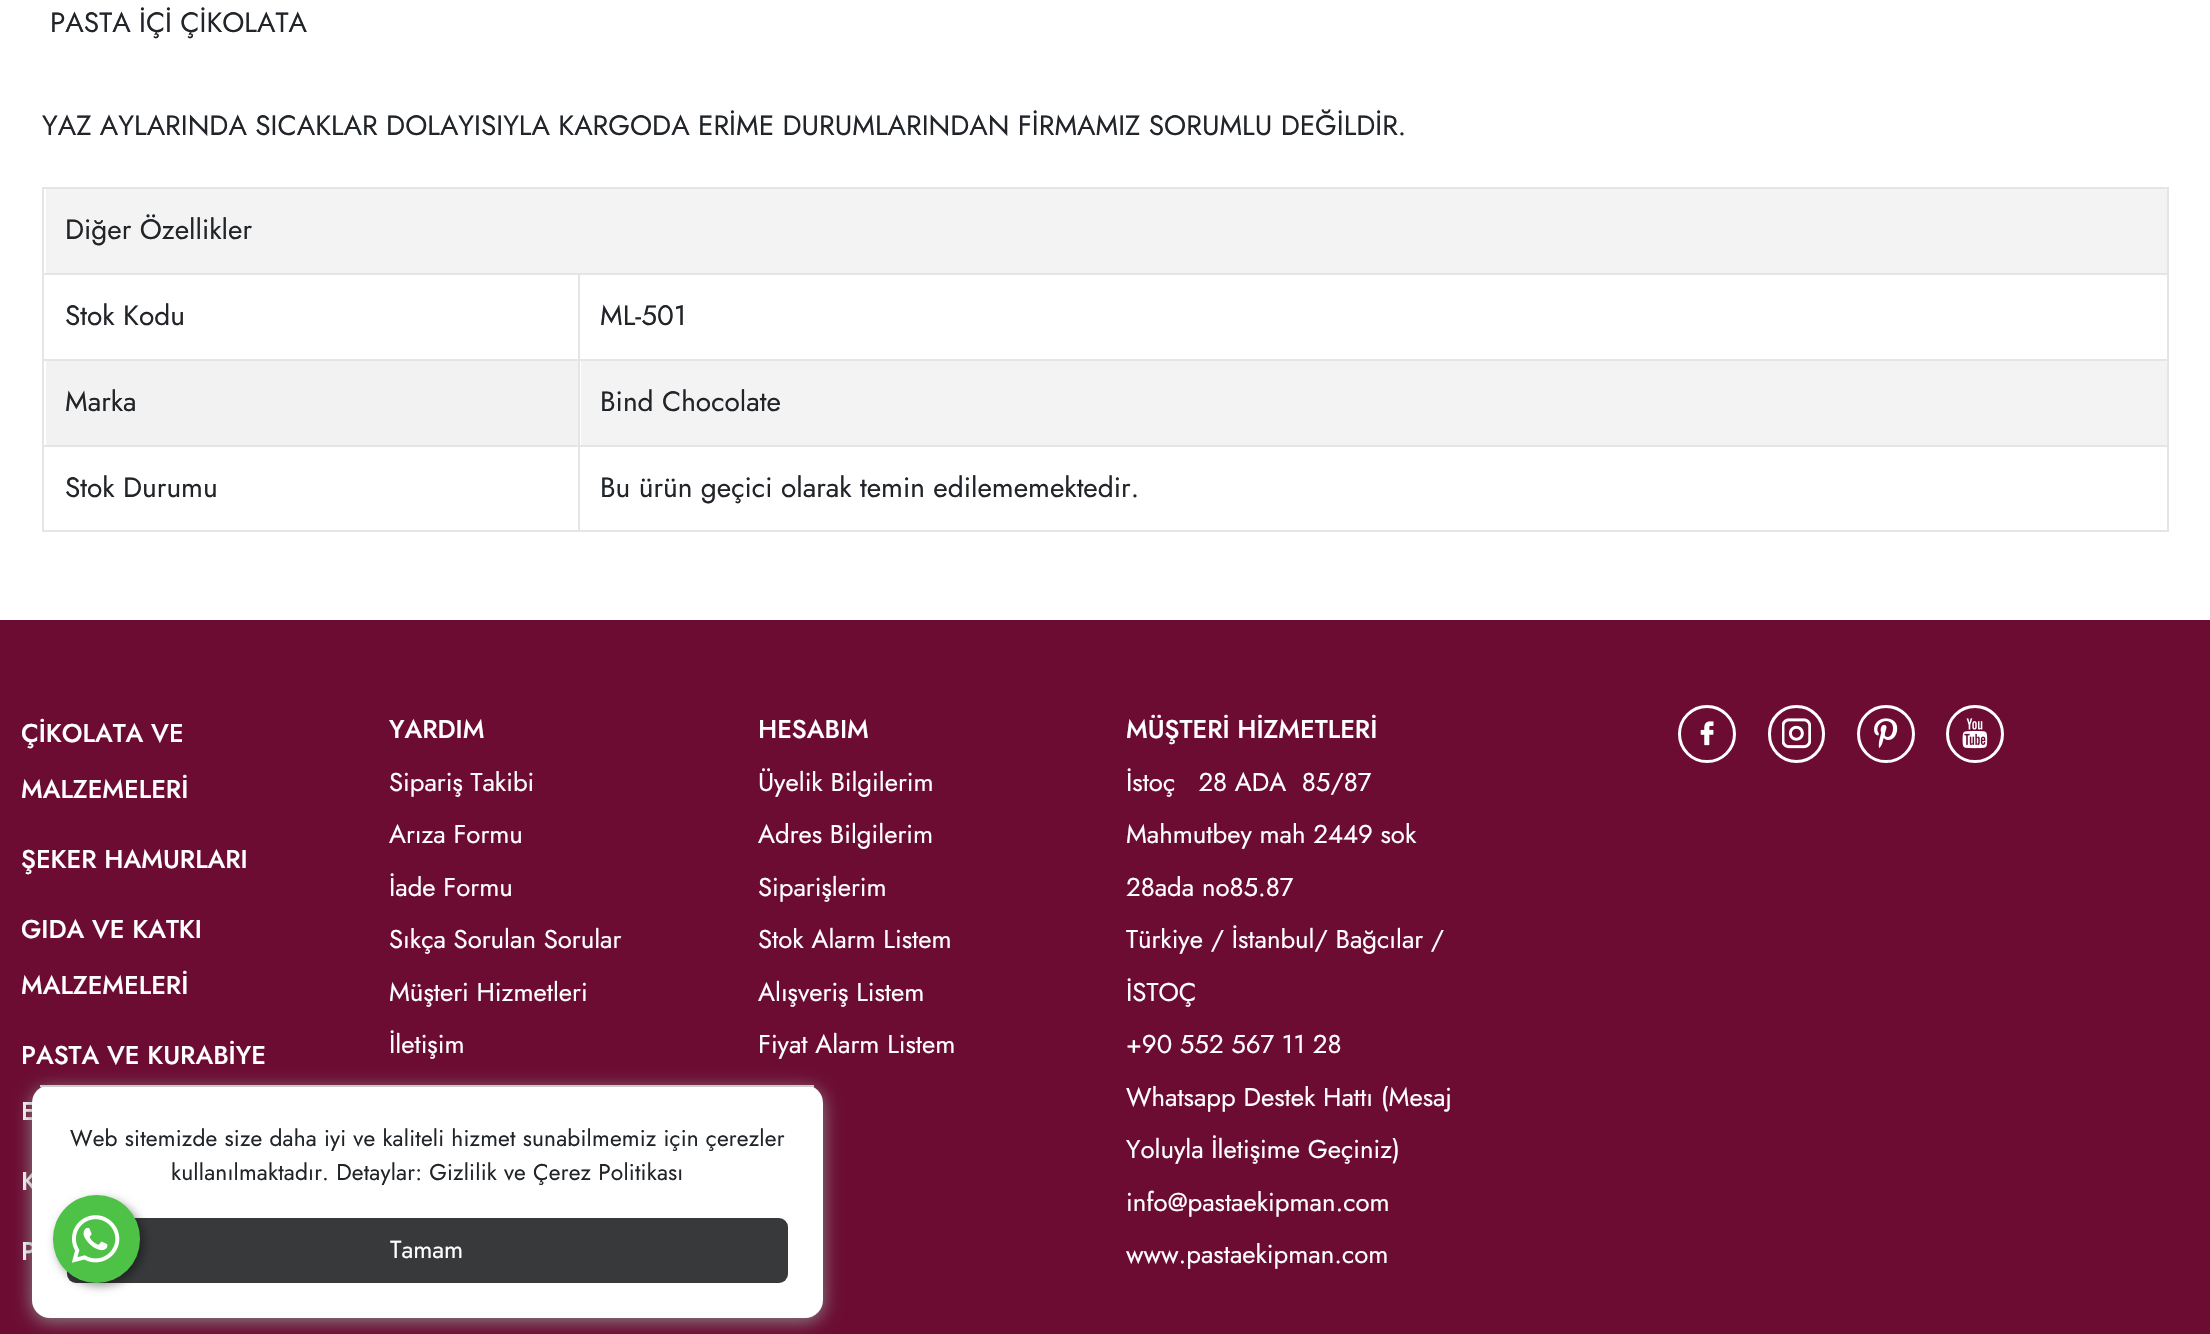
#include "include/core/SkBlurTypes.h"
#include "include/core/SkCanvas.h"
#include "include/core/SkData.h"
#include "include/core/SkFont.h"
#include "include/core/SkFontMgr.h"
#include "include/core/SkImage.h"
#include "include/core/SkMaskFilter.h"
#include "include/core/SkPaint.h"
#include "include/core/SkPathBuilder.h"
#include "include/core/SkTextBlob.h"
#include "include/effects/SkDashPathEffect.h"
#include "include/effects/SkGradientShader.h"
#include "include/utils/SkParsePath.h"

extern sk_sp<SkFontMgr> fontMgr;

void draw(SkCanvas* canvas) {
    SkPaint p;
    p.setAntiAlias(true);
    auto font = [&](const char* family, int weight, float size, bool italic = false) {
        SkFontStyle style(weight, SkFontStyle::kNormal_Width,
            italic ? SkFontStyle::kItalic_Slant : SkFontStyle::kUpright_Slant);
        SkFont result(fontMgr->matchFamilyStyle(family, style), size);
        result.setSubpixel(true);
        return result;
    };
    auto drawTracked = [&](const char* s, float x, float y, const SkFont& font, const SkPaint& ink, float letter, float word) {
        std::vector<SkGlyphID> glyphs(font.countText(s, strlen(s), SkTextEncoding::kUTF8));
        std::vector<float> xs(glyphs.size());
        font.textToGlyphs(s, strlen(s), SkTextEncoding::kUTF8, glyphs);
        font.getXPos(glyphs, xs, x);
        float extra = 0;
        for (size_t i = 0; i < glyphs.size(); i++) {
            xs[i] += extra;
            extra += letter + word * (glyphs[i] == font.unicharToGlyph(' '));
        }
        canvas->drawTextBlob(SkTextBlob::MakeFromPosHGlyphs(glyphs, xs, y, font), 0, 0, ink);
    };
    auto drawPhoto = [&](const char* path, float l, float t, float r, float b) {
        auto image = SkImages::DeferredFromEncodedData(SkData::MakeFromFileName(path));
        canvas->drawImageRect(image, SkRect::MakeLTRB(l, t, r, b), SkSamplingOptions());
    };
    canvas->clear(0xFFFFFFFF);
    auto font1 = font("Jost", 400, 28);
    p.setColor(0xFF212529);
    canvas->drawString("PASTA İÇİ ÇİKOLATA", 50, 32, font1, p);
    canvas->drawString("YAZ AYLARINDA SICAKLAR DOLAYISIYLA KARGODA ERİME DURUMLARINDAN FİRMAMIZ SORUMLU DEĞİLDİR.", 42, 135, font1, p);
    p.setColor(0xFFE5E5E5);
    canvas->drawRect(SkRect::MakeLTRB(42, 187, 2168, 189), p);
    p.setColor(0xFFF3F3F3);
    canvas->drawRect(SkRect::MakeLTRB(46, 189, 2167, 273), p);
    p.setColor(0xFF212529);
    canvas->drawString("Diğer Özellikler", 65, 239, font1, p);
    p.setColor(0xFFE5E5E5);
    canvas->drawRect(SkRect::MakeLTRB(42, 273, 2168, 275), p);
    p.setColor(0xFF212529);
    canvas->drawString("Stok Kodu", 65, 325, font1, p);
    canvas->drawString("ML-501", 600, 325, font1, p);
    p.setColor(0xFFE5E5E5);
    canvas->drawRect(SkRect::MakeLTRB(42, 359, 2168, 361), p);
    p.setColor(0xFFF2F2F2);
    canvas->drawRect(SkRect::MakeLTRB(46, 361, 578, 445), p);
    p.setColor(0xFF212529);
    canvas->drawString("Marka", 65, 411, font1, p);
    p.setColor(0xFFF3F3F3);
    canvas->drawRect(SkRect::MakeLTRB(581, 361, 2167, 445), p);
    p.setColor(0xFF212529);
    canvas->drawString("Bind Chocolate", 600, 411, font1, p);
    {
        const struct { float l, t, r, b; SkColor color; } items[] = {
            {42, 445, 2168, 447, 0xFFE5E5E5},
            {42, 530, 2168, 532, 0xFFE5E5E5},
            {42, 187, 44, 532, 0xFFE5E5E5},
        };
        for (auto [l, t, r, b, color] : items) {
            p.setColor(color);
            canvas->drawRect(SkRect::MakeLTRB(l, t, r, b), p);
        }
    }
    p.setColor(0xFF212529);
    canvas->drawString("Stok Durumu", 65, 497, font1, p);
    p.setColor(0xFFE5E5E5);
    canvas->drawRect(SkRect::MakeLTRB(2167, 187, 2169, 532), p);
    canvas->drawRect(SkRect::MakeLTRB(578, 273, 580, 532), p);
    p.setColor(0xFF212529);
    canvas->drawString("Bu ürün geçici olarak temin edilememektedir.", 600, 497, font1, p);
    p.setColor(0xFF6C0C33);
    canvas->drawRect(SkRect::MakeLTRB(0, 620, 2210, 1334), p);
    auto font2 = font("Jost", 500, 25.75f);
    p.setColor(0xFFFFFFFF);
    {
        const struct { const char* s; float x, y; } items[] = {
            {"ÇİKOLATA VE", 21, 742},
            {"MALZEMELERİ", 21, 798},
            {"ŞEKER HAMURLARI", 21, 868},
            {"GIDA VE KATKI", 21, 938},
            {"MALZEMELERİ", 21, 994},
            {"PASTA VE KURABİYE", 21, 1064},
            {"E", 21, 1120},
            {"K", 21, 1190},
            {"P", 21, 1260},
            {"YARDIM", 389, 738},
        };
        for (auto [s, x, y] : items) {
            canvas->drawString(s, x, y, font2, p);
        }
    }
    auto font3 = font("Jost", 400, 25.75f);
    {
        const struct { const char* s; float x, y; } items[] = {
            {"Sipariş Takibi", 389, 791},
            {"Arıza Formu", 389, 843},
            {"İade Formu", 389, 896},
            {"Sıkça Sorulan Sorular", 389, 948},
            {"Müşteri Hizmetleri", 389, 1001},
            {"İletişim", 389, 1053},
        };
        for (auto [s, x, y] : items) {
            canvas->drawString(s, x, y, font3, p);
        }
    }
    canvas->drawString("HESABIM", 758, 738, font2, p);
    {
        const struct { const char* s; float x, y; } items[] = {
            {"Üyelik Bilgilerim", 758, 791},
            {"Adres Bilgilerim", 758, 843},
            {"Siparişlerim", 758, 896},
            {"Stok Alarm Listem", 758, 948},
            {"Alışveriş Listem", 758, 1001},
            {"Fiyat Alarm Listem", 758, 1053},
        };
        for (auto [s, x, y] : items) {
            canvas->drawString(s, x, y, font3, p);
        }
    }
    canvas->drawString("MÜŞTERİ HİZMETLERİ", 1126, 738, font2, p);
    {
        const struct { const char* s; float x, y; } items[] = {
            {"İstoç   28 ADA  85/87", 1126, 791},
            {"Mahmutbey mah 2449 sok", 1126, 843},
            {"28ada no85.87", 1126, 896},
            {"Türkiye / İstanbul/ Bağcılar /", 1126, 948},
            {"İSTOÇ", 1126, 1001},
            {"+90 552 567 11 28", 1126, 1053},
            {"Whatsapp Destek Hattı (Mesaj", 1126, 1106},
            {"Yoluyla İletişime Geçiniz)", 1126, 1158},
            {"info@pastaekipman.com", 1126, 1211},
            {"www.pastaekipman.com", 1126, 1263},
        };
        for (auto [s, x, y] : items) {
            canvas->drawString(s, x, y, font3, p);
        }
    }
    p.setStyle(SkPaint::kStroke_Style);
    p.setStrokeWidth(3);
    canvas->drawCircle(1707, 734, 27.5f, p);
    drawPhoto("media/1.png", 1700, 721, 1714, 746);
    canvas->drawRoundRect(SkRect::MakeLTRB(1769.5f, 706.5f, 1823.5f, 761.5f), 27, 27, p);
    drawPhoto("media/2.png", 1782, 718, 1811, 749);
    canvas->drawCircle(1886, 734, 27.5f, p);
    drawPhoto("media/3.png", 1874, 718, 1898, 748);
    canvas->drawCircle(1975, 734, 27.5f, p);
    drawPhoto("media/4.png", 1962, 718, 1988, 749);
    p.setStyle(SkPaint::kFill_Style);
    p.setColor(0xFF888888);
    p.setMaskFilter(SkMaskFilter::MakeBlur(kNormal_SkBlurStyle, 9));
    canvas->drawRoundRect(SkRect::MakeLTRB(32, 1089, 823, 1321), 18, 18, p);
    p.setMaskFilter(nullptr);
    p.setColor(0xFFFFFFFF);
    canvas->drawRoundRect(SkRect::MakeLTRB(32, 1085, 823, 1318), 18, 18, p);
    p.setColor(0xFFCCCCCC);
    canvas->drawRect(SkRect::MakeLTRB(40, 1085, 814, 1087), p);
    auto font4 = font("Jost", 400, 22.75f);
    p.setColor(0xFF212529);
    drawTracked("Web sitemizde size daha iyi ve kaliteli hizmet sunabilmemiz için çerezler", 70, 1146, font4, p, 0.18f, 0);
    drawTracked("kullanılmaktadır. Detaylar: Gizlilik ve Çerez Politikası", 171, 1180, font4, p, 0.18f, 0);
    p.setColor(0xFF37393B);
    canvas->drawRoundRect(SkRect::MakeLTRB(67, 1218, 788, 1283), 9, 9, p);
    auto font5 = font("Jost", 400, 24.5f);
    p.setColor(0xFFFFFFFF);
    canvas->drawString("Tamam", 390, 1258, font5, p);
    p.setColor(0x66000000);
    p.setMaskFilter(SkMaskFilter::MakeBlur(kNormal_SkBlurStyle, 5));
    canvas->drawRoundRect(SkRect::MakeLTRB(56, 1199, 144, 1286), 43.5f, 43.5f, p);
    p.setMaskFilter(nullptr);
    p.setColor(0xFF4DC247);
    canvas->drawRoundRect(SkRect::MakeLTRB(53, 1195, 140, 1283), 43.5f, 43.5f, p);
    drawPhoto("media/5.png", 72, 1215, 120, 1263);
}
